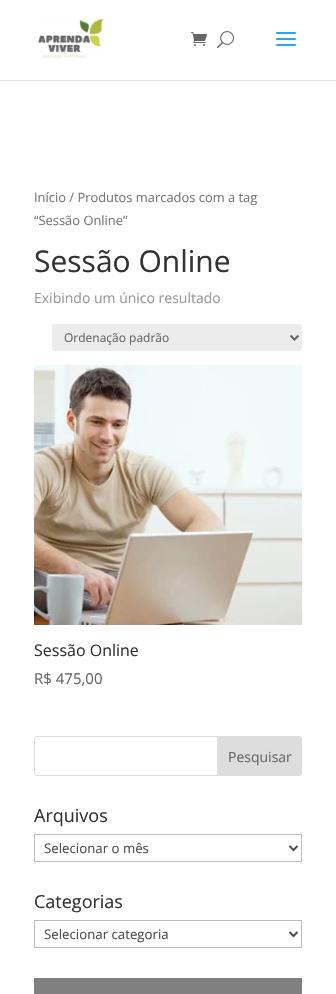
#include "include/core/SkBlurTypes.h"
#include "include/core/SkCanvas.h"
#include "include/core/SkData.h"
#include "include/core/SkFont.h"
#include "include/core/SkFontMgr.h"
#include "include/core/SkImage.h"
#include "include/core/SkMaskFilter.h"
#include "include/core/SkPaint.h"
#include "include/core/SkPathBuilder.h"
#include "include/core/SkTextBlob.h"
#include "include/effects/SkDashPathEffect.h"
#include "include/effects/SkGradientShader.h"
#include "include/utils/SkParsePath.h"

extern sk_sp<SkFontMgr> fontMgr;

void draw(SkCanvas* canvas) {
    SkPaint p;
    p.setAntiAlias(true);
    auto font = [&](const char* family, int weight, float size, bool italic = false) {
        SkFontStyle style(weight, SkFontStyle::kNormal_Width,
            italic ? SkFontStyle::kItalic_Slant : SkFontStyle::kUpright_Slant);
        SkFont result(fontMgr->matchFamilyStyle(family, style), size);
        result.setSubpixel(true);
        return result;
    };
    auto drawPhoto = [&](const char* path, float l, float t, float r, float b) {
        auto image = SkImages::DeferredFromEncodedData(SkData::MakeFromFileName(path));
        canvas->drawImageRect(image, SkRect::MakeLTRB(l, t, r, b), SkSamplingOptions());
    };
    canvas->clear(0xFFFFFFFF);
    p.setColor(0xFFE6E6E6);
    canvas->drawRect(SkRect::MakeLTRB(0, 80, 336, 81), p);
    drawPhoto("media/1.png", 37, 18, 104, 59);
    drawPhoto("media/2.png", 191, 32, 207, 46);
    drawPhoto("media/3.png", 217, 31, 234, 49);
    drawPhoto("media/4.png", 276, 32, 296, 46);
    auto font1 = font("Open Sans", 400, 12.9f);
    p.setColor(0xFF767676);
    canvas->drawString("Início / Produtos marcados com a tag", 34, 202, font1, p);
    canvas->drawString("“Sessão Online”", 34, 225, font1, p);
    auto font2 = font("Open Sans", 400, 30);
    p.setColor(0xFF333333);
    canvas->drawString("Sessão Online", 34, 272, font2, p);
    auto font3 = font("Open Sans", 400, 14);
    p.setColor(0xFF999999);
    canvas->drawString("Exibindo um único resultado", 34, 303, font3, p);
    p.setColor(0xFFECECEC);
    canvas->drawRoundRect(SkRect::MakeLTRB(52, 324, 302, 351), 3, 3, p);
    p.setStyle(SkPaint::kStroke_Style);
    p.setStrokeWidth(2);
    p.setColor(0xFF666666);
    canvas->drawPath(SkPathBuilder().moveTo(290.5f, 335.5f).lineTo(294.5f, 339.5f).lineTo(298.5f, 335.5f).detach(), p);
    auto font4 = font("Open Sans", 400, 12);
    p.setStyle(SkPaint::kFill_Style);
    canvas->drawString("Ordenação padrão", 64, 342, font4, p);
    drawPhoto("media/5.png", 34, 365, 302, 625);
    auto font5 = font("Open Sans", 400, 16);
    p.setColor(0xFF333333);
    canvas->drawString("Sessão Online", 34, 656, font5, p);
    auto font6 = font("Open Sans", 400, 15);
    p.setColor(0xFF666666);
    canvas->drawString("R$ 475,00", 34, 684, font6, p);
    p.setStyle(SkPaint::kStroke_Style);
    p.setStrokeWidth(1);
    p.setColor(0xFFDDDDDD);
    canvas->drawRoundRect(SkRect::MakeLTRB(34.5f, 736.5f, 301.5f, 775.5f), 2.5f, 2.5f, p);
    p.setStyle(SkPaint::kFill_Style);
    canvas->drawPath(SkPathBuilder().moveTo(217.5f, 736.5f).lineTo(299, 736.5f).cubicTo(300.5f, 736.5f, 301.5f, 737.5f, 301.5f, 739).lineTo(301.5f, 773).cubicTo(301.5f, 774.5f, 300.5f, 775.5f, 299, 775.5f).lineTo(217.5f, 775.5f).close().detach(), p);
    p.setStyle(SkPaint::kStroke_Style);
    canvas->drawPath(SkPathBuilder().moveTo(217.5f, 736.5f).lineTo(299, 736.5f).cubicTo(300.5f, 736.5f, 301.5f, 737.5f, 301.5f, 739).lineTo(301.5f, 773).cubicTo(301.5f, 774.5f, 300.5f, 775.5f, 299, 775.5f).lineTo(217.5f, 775.5f).close().detach(), p);
    p.setStyle(SkPaint::kFill_Style);
    p.setColor(0xFF666666);
    canvas->drawString("Pesquisar", 228, 762, font3, p);
    auto font7 = font("Open Sans", 400, 18);
    p.setColor(0xFF333333);
    canvas->drawString("Arquivos", 34, 822, font7, p);
    p.setStyle(SkPaint::kStroke_Style);
    p.setColor(0xFFBBBBBB);
    canvas->drawRect(SkRect::MakeLTRB(34.5f, 834.5f, 301.5f, 861.5f), p);
    p.setStrokeWidth(2);
    p.setColor(0xFF4E4E4E);
    canvas->drawPath(SkPathBuilder().moveTo(289.5f, 846).lineTo(293.5f, 850).lineTo(297.5f, 846).detach(), p);
    auto font8 = font("Open Sans", 400, 13.25f);
    p.setStyle(SkPaint::kFill_Style);
    canvas->drawString("Selecionar o mês", 44, 853, font8, p);
    p.setColor(0xFF333333);
    canvas->drawString("Categorias", 34, 908, font7, p);
    p.setStyle(SkPaint::kStroke_Style);
    p.setStrokeWidth(1);
    p.setColor(0xFFBBBBBB);
    canvas->drawRect(SkRect::MakeLTRB(34.5f, 920.5f, 301.5f, 947.5f), p);
    p.setStrokeWidth(2);
    p.setColor(0xFF4E4E4E);
    canvas->drawPath(SkPathBuilder().moveTo(289.5f, 932).lineTo(293.5f, 936).lineTo(297.5f, 932).detach(), p);
    p.setStyle(SkPaint::kFill_Style);
    canvas->drawString("Selecionar categoria", 44, 939, font8, p);
    p.setColor(0xFF808080);
    canvas->drawRect(SkRect::MakeLTRB(34, 978, 302, 994), p);
}
